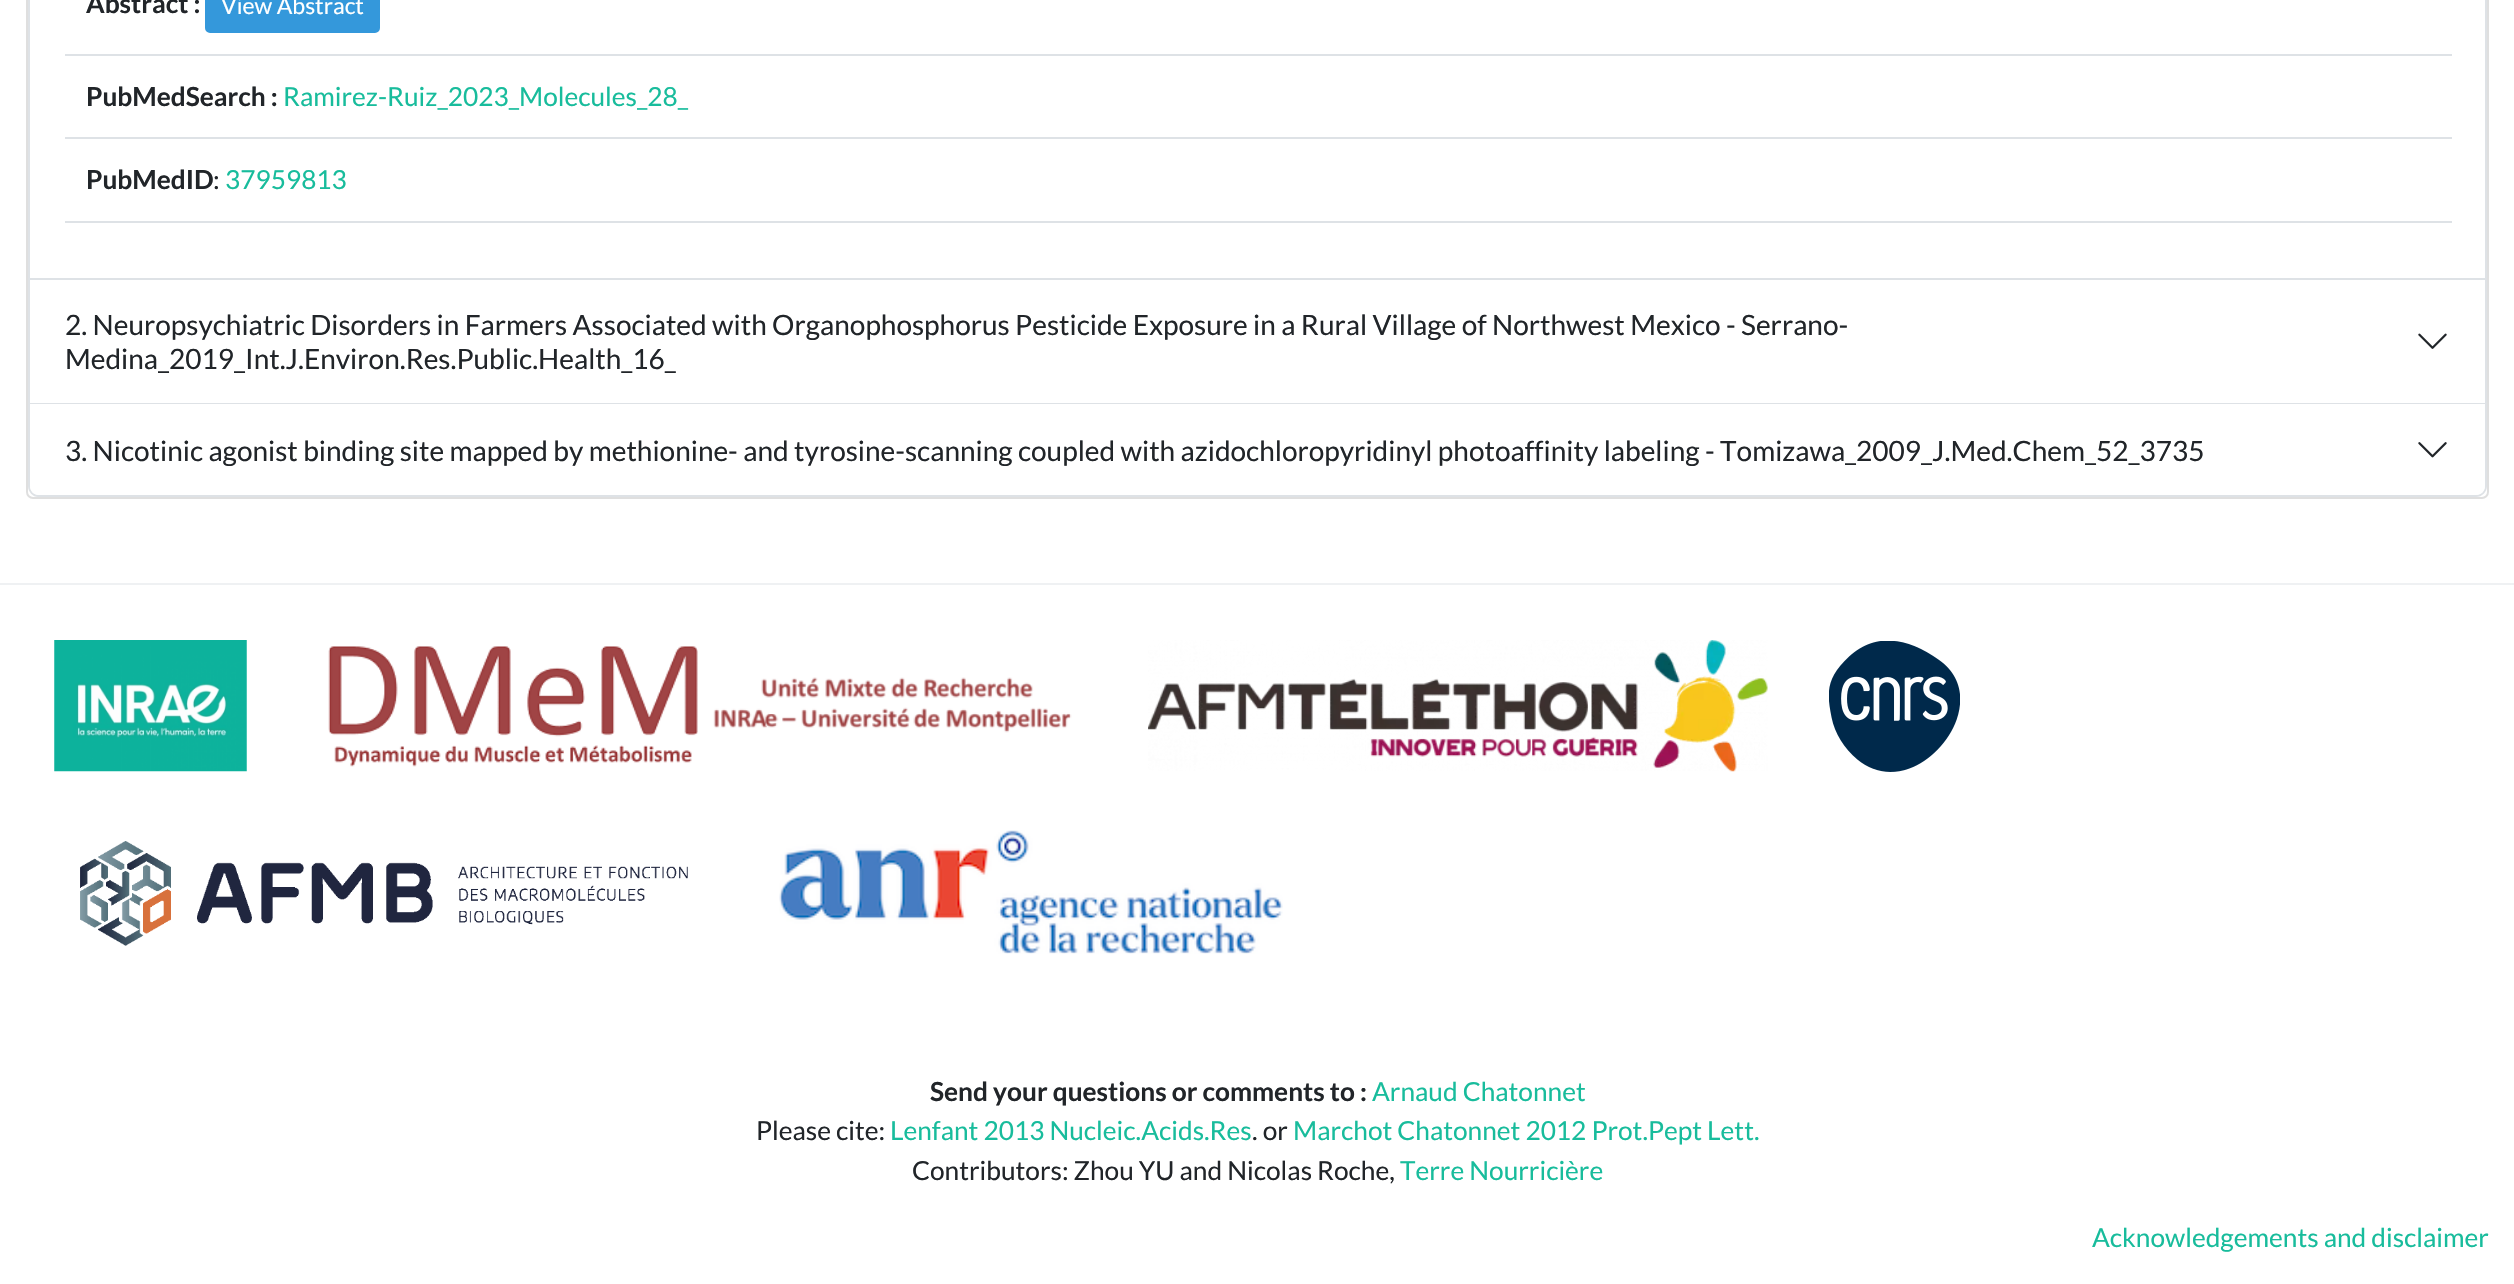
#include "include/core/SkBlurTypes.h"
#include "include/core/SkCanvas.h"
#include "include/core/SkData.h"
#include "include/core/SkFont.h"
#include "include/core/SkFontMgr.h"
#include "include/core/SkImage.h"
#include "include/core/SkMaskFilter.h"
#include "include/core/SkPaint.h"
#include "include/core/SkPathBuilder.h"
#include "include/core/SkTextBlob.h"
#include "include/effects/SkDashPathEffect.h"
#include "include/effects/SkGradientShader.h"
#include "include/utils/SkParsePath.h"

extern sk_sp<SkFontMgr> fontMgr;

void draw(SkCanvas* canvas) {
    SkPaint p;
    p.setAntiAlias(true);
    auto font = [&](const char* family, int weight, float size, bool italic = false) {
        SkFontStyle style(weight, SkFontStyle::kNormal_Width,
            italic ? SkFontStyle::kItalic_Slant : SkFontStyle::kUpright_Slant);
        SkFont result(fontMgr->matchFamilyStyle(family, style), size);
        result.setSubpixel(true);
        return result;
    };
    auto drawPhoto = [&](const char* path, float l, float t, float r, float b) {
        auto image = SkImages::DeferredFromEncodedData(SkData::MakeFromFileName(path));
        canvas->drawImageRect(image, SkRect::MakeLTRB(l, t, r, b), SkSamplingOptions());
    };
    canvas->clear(0xFFFFFFFF);
    p.setStyle(SkPaint::kStroke_Style);
    p.setStrokeWidth(2);
    p.setColor(0xFFDFDFDF);
    canvas->drawRoundRect(SkRect::MakeLTRB(27, -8, 2488, 498), 6, 6, p);
    p.setStyle(SkPaint::kFill_Style);
    {
        const struct { float l, t, r, b; SkColor color; } items[] = {
            {2485, 0, 2487, 404, 0xFFDEE2E6},
            {28, 278, 2487, 280, 0xFFDEE2E6},
            {28, 0, 30, 280, 0xFFDEE2E6},
        };
        for (auto [l, t, r, b, color] : items) {
            p.setColor(color);
            canvas->drawRect(SkRect::MakeLTRB(l, t, r, b), p);
        }
    }
    auto font1 = font("Lato", 700, 26.25f);
    p.setColor(0xFF212529);
    canvas->drawString("Abstract :", 86, 13, font1, p);
    p.setColor(0xFF3498DB);
    canvas->drawRoundRect(SkRect::MakeLTRB(206, -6, 379, 32), 4, 4, p);
    p.setStyle(SkPaint::kStroke_Style);
    canvas->drawRoundRect(SkRect::MakeLTRB(206, -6, 379, 32), 4, 4, p);
    auto font2 = font("Lato", 400, 23);
    p.setStyle(SkPaint::kFill_Style);
    p.setColor(0xFFFFFFFF);
    canvas->drawString("View Abstract", 221, 14, font2, p);
    p.setColor(0xFFDEE2E6);
    canvas->drawRect(SkRect::MakeLTRB(65, 54, 2452, 56), p);
    p.setColor(0xFF212529);
    canvas->drawString("PubMedSearch :", 86, 106, font1, p);
    auto font3 = font("Lato", 400, 26.25f);
    p.setColor(0xFF18BC9C);
    canvas->drawString("Ramirez-Ruiz_2023_Molecules_28_", 283, 106, font3, p);
    p.setColor(0xFFDEE2E6);
    canvas->drawRect(SkRect::MakeLTRB(65, 137, 2452, 139), p);
    canvas->drawRect(SkRect::MakeLTRB(65, 221, 2452, 223), p);
    p.setColor(0xFF212529);
    canvas->drawString("PubMedID", 86, 189, font1, p);
    canvas->drawString(":", 213, 189, font3, p);
    p.setColor(0xFF18BC9C);
    canvas->drawString("37959813", 225, 189, font3, p);
    p.setColor(0xFFDEE2E6);
    canvas->drawRect(SkRect::MakeLTRB(28, 403, 2487, 404), p);
    canvas->drawRect(SkRect::MakeLTRB(28, 280, 30, 404), p);
    auto font4 = font("Lato", 400, 28);
    p.setColor(0xFF212529);
    canvas->drawString("2. Neuropsychiatric Disorders in Farmers Associated with Organophosphorus Pesticide Exposure in a Rural Village of Northwest Mexico - Serrano-", 65, 335, font4, p);
    drawPhoto("media/1.png", 2418, 333, 2447, 349);
    canvas->drawString("Medina_2019_Int.J.Environ.Res.Public.Health_16_", 65, 369, font4, p);
    p.setColor(0xFFDEE2E6);
    canvas->drawPath(SkPathBuilder(SkPathFillType::kEvenOdd).moveTo(28, 404).lineTo(2487, 404).lineTo(2487, 486).cubicTo(2487, 492, 2482, 497, 2476, 497).lineTo(38, 497).cubicTo(33, 497, 28, 492, 28, 486).close().moveTo(30, 404).lineTo(2485, 404).lineTo(2485, 486).cubicTo(2485, 491, 2481, 495, 2476, 495).lineTo(38, 495).cubicTo(34, 495, 30, 491, 30, 486).close().detach(), p);
    p.setColor(0xFFFFFFFF);
    canvas->drawPath(SkPathBuilder().moveTo(30, 404).lineTo(2485, 404).lineTo(2485, 486).cubicTo(2485, 491, 2481, 495, 2476, 495).lineTo(39, 495).cubicTo(34, 495, 30, 491, 30, 486).close().detach(), p);
    p.setColor(0xFF212529);
    canvas->drawString("3. Nicotinic agonist binding site mapped by methionine- and tyrosine-scanning coupled with azidochloropyridinyl photoaffinity labeling - Tomizawa_2009_J.Med.Chem_52_3735", 65, 461, font4, p);
    drawPhoto("media/2.png", 2418, 442, 2447, 458);
    p.setColor(0xFFEFF1F3);
    canvas->drawRect(SkRect::MakeLTRB(0, 583, 2514, 585), p);
    drawPhoto("media/3.png", 54, 640, 247, 772);
    drawPhoto("media/4.png", 328, 646, 1072, 767);
    drawPhoto("media/5.png", 1148, 640, 1768, 772);
    drawPhoto("media/6.png", 1829, 641, 1960, 772);
    drawPhoto("media/7.png", 80, 841, 688, 946);
    drawPhoto("media/8.png", 779, 830, 1283, 954);
    p.setColor(0xFF212529);
    canvas->drawString("Send your questions or comments to :", 930, 1101, font1, p);
    p.setColor(0xFF18BC9C);
    canvas->drawString("Arnaud Chatonnet", 1372, 1101, font3, p);
    p.setColor(0xFF212529);
    canvas->drawString("Please cite:", 756, 1140, font3, p);
    p.setColor(0xFF18BC9C);
    canvas->drawString("Lenfant 2013 Nucleic.Acids.Res", 890, 1140, font3, p);
    p.setColor(0xFF212529);
    canvas->drawString(". or", 1252, 1140, font3, p);
    p.setColor(0xFF18BC9C);
    canvas->drawString("Marchot Chatonnet 2012 Prot.Pept Lett.", 1293, 1140, font3, p);
    p.setColor(0xFF212529);
    canvas->drawString("Contributors: Zhou YU and Nicolas Roche,", 912, 1180, font3, p);
    p.setColor(0xFF18BC9C);
    canvas->drawString("Terre Nourricière", 1400, 1180, font3, p);
    canvas->drawString("Acknowledgements and disclaimer", 2092, 1247, font3, p);
}
